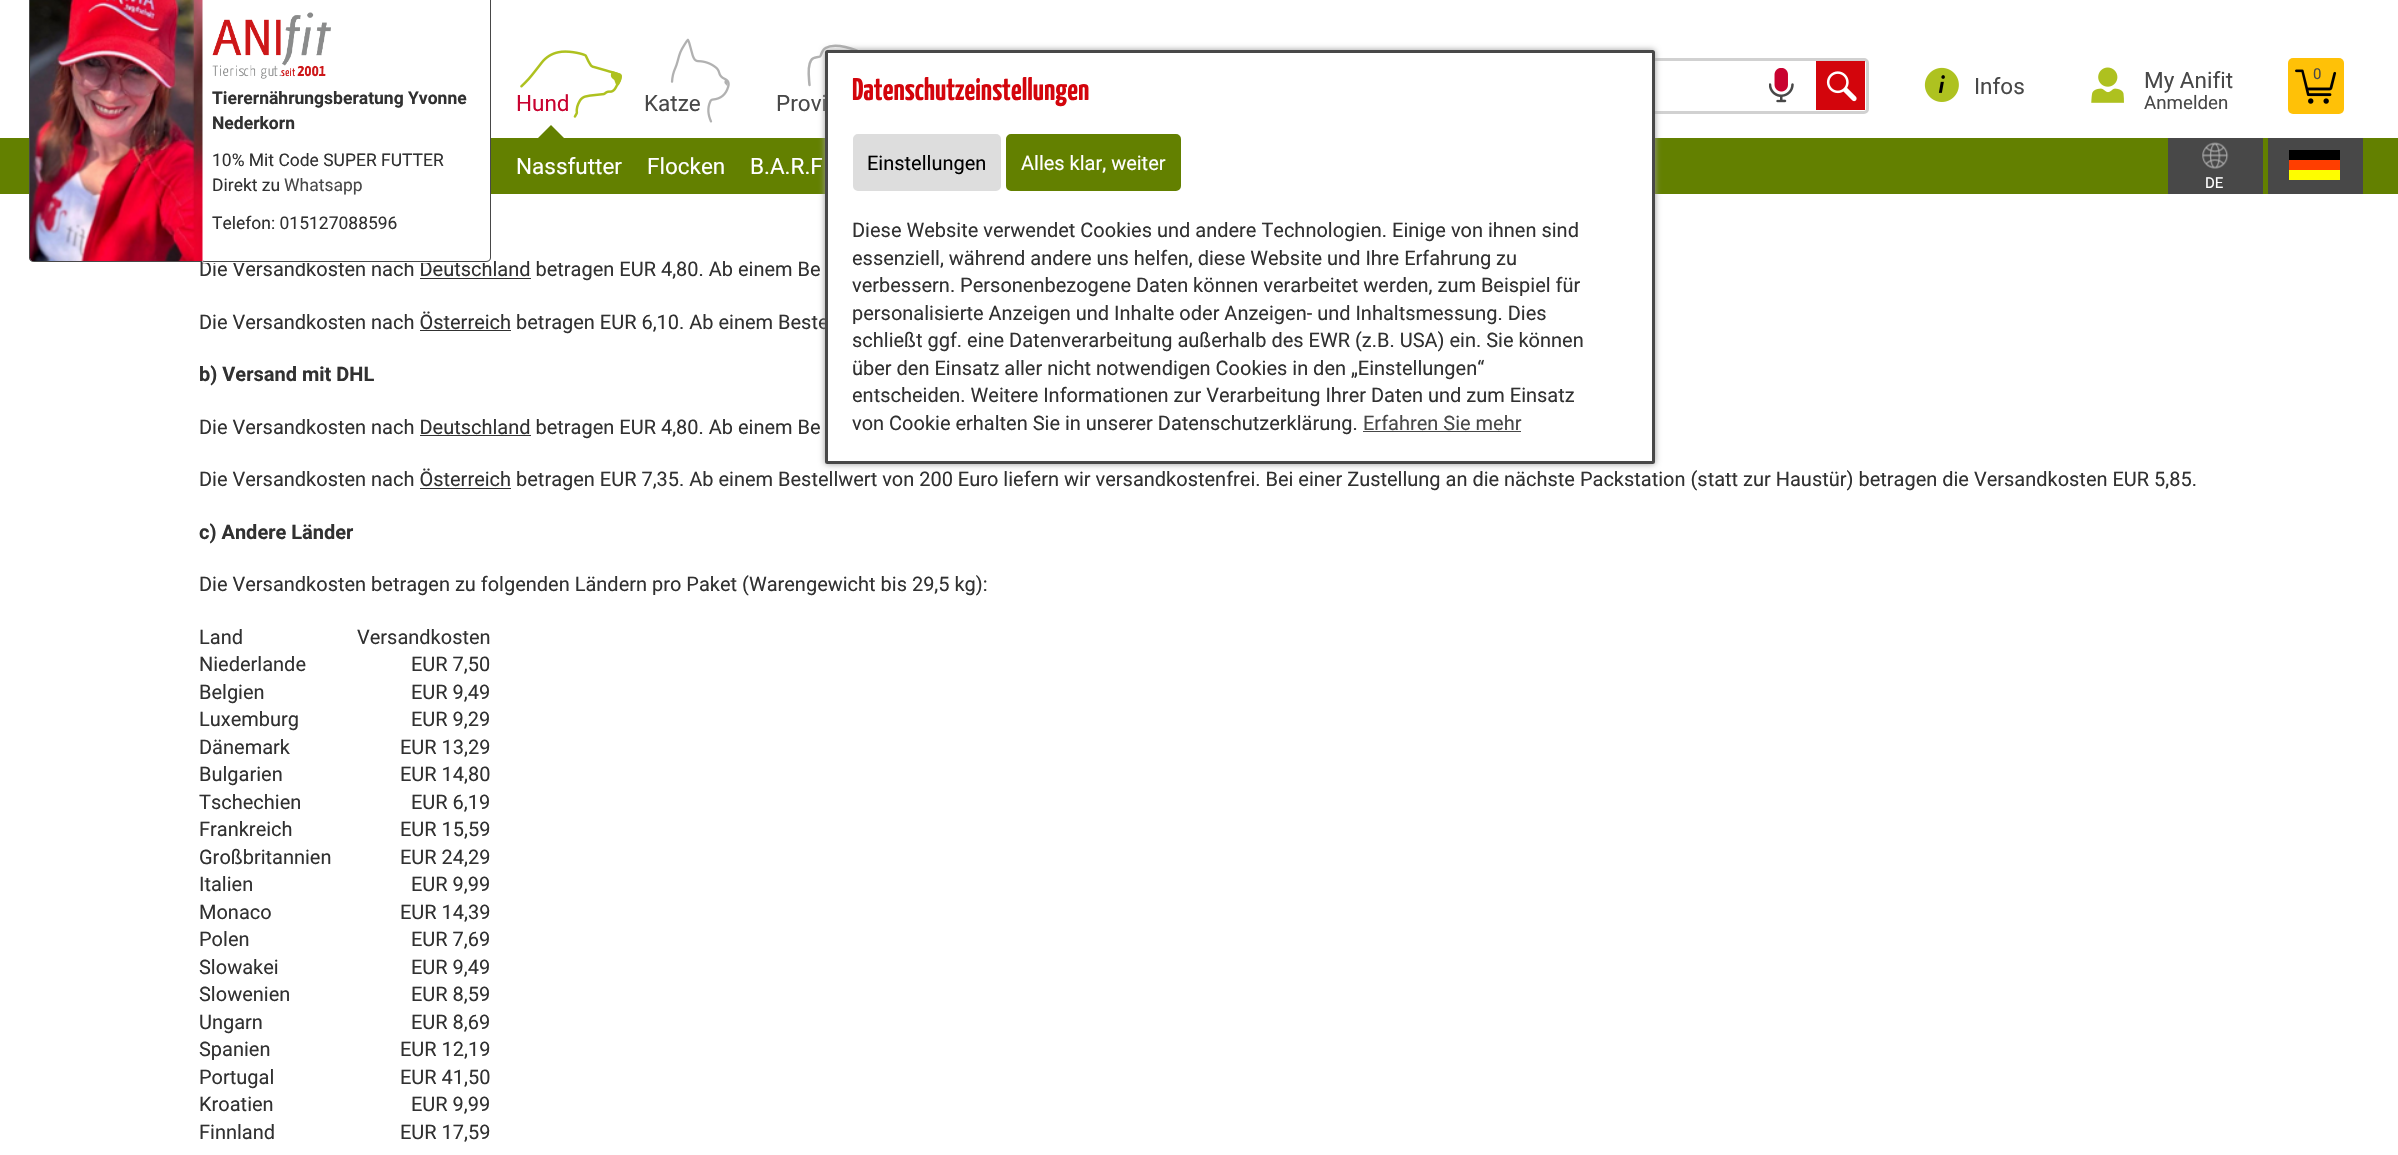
#include "include/core/SkBlurTypes.h"
#include "include/core/SkCanvas.h"
#include "include/core/SkData.h"
#include "include/core/SkFont.h"
#include "include/core/SkFontMgr.h"
#include "include/core/SkImage.h"
#include "include/core/SkMaskFilter.h"
#include "include/core/SkPaint.h"
#include "include/core/SkPathBuilder.h"
#include "include/core/SkTextBlob.h"
#include "include/effects/SkDashPathEffect.h"
#include "include/effects/SkGradientShader.h"
#include "include/utils/SkParsePath.h"

extern sk_sp<SkFontMgr> fontMgr;

void draw(SkCanvas* canvas) {
    SkPaint p;
    p.setAntiAlias(true);
    auto font = [&](const char* family, int weight, float size, bool italic = false) {
        SkFontStyle style(weight, SkFontStyle::kNormal_Width,
            italic ? SkFontStyle::kItalic_Slant : SkFontStyle::kUpright_Slant);
        SkFont result(fontMgr->matchFamilyStyle(family, style), size);
        result.setSubpixel(true);
        return result;
    };
    auto drawPhoto = [&](const char* path, float l, float t, float r, float b) {
        auto image = SkImages::DeferredFromEncodedData(SkData::MakeFromFileName(path));
        canvas->drawImageRect(image, SkRect::MakeLTRB(l, t, r, b), SkSamplingOptions());
    };
    canvas->clear(0xFFFFFFFF);
    drawPhoto("media/1.png", 1924, 67, 1959, 102);
    auto font1 = font("Roboto", 400, 22.5f);
    p.setColor(0xFF484848);
    canvas->drawString("Infos", 1974, 94, font1, p);
    drawPhoto("media/2.png", 2091, 67, 2124, 103);
    canvas->drawString("My Anifit", 2144, 88, font1, p);
    auto font2 = font("Roboto", 400, 18.75f);
    canvas->drawString("Anmelden", 2144, 109, font2, p);
    p.setColor(0xFFFFC107);
    canvas->drawRoundRect(SkRect::MakeLTRB(2288, 58, 2344, 114), 5, 5, p);
    drawPhoto("media/3.png", 2295, 69, 2337, 104);
    auto font3 = font("Roboto", 400, 15);
    p.setColor(0xFF484848);
    canvas->drawString("0", 2313, 79, font3, p);
    auto font4 = font("Roboto", 400, 20);
    p.setColor(0xFF313131);
    canvas->drawString("Die Versandkosten nach Deutschland betragen EUR 4,80. Ab einem Be", 199, 276, font4, p);
    p.setColor(0xFF638000);
    canvas->drawRect(SkRect::MakeLTRB(0, 138, 2398, 194), p);
    p.setColor(0xFFFFFFFF);
    canvas->drawPath(SkPathBuilder().moveTo(200, 0).lineTo(491, 0).lineTo(491, 258).cubicTo(491, 261, 489, 263, 486, 263).lineTo(205, 263).cubicTo(202, 263, 200, 261, 200, 258).close().detach(), p);
    p.setColor(0xFF484848);
    canvas->drawPath(SkPathBuilder(SkPathFillType::kEvenOdd).moveTo(200, 0).lineTo(491, 0).lineTo(491, 258).cubicTo(491, 260, 489, 262, 486, 262).lineTo(205, 262).cubicTo(202, 262, 200, 260, 200, 258).close().moveTo(200, 0).lineTo(490, 0).lineTo(490, 258).cubicTo(490, 260, 488, 261, 486, 261).lineTo(205, 261).cubicTo(202, 261, 200, 260, 200, 258).close().detach(), p);
    canvas->drawPath(SkPathBuilder(SkPathFillType::kEvenOdd).moveTo(29, 0).lineTo(202, 0).lineTo(202, 262).lineTo(34, 262).cubicTo(31, 262, 29, 260, 29, 258).close().moveTo(30, 0).lineTo(202, 0).lineTo(202, 261).lineTo(34, 261).cubicTo(32, 261, 30, 260, 30, 258).close().detach(), p);
    p.setColor(0xFFFFFFFF);
    canvas->drawPath(SkPathBuilder().moveTo(30, 0).lineTo(203, 0).lineTo(203, 261).lineTo(34, 261).cubicTo(32, 261, 30, 259, 30, 257).close().detach(), p);
    drawPhoto("media/4.png", 30, 0, 203, 261);
    drawPhoto("media/5.png", 212, 12, 331, 79);
    auto font5 = font("Roboto", 700, 17.5f);
    p.setColor(0xFF313131);
    canvas->drawString("Tierernährungsberatung Yvonne", 212, 104, font5, p);
    canvas->drawString("Nederkorn", 212, 129, font5, p);
    auto font6 = font("Roboto", 400, 17.5f);
    canvas->drawString("10% Mit Code SUPER FUTTER", 212, 166, font6, p);
    canvas->drawString("Direkt zu", 212, 191, font6, p);
    p.setColor(0xFF484848);
    canvas->drawString("Whatsapp", 284, 191, font6, p);
    p.setColor(0xFF313131);
    canvas->drawString("Telefon: 015127088596", 212, 229, font6, p);
    p.setColor(0xFFC90230);
    canvas->drawString("Hund", 516, 111, font1, p);
    drawPhoto("media/6.png", 520, 50, 622, 118);
    p.setColor(0xFF638000);
    canvas->drawPath(SkPathBuilder().moveTo(566, 140).lineTo(536, 140).lineTo(551, 125).close().detach(), p);
    p.setColor(0xFFFFFFFF);
    {
        const struct { const char* s; float x, y; } items[] = {
            {"Nassfutter", 516, 174},
            {"Flocken", 647, 174},
            {"B.A.R.F", 750, 174},
        };
        for (auto [s, x, y] : items) {
            canvas->drawString(s, x, y, font1, p);
        }
    }
    p.setColor(0xFF484848);
    canvas->drawString("Katze", 644, 111, font1, p);
    drawPhoto("media/7.png", 670, 38, 730, 123);
    canvas->drawString("Provi", 776, 111, font1, p);
    p.setStyle(SkPaint::kStroke_Style);
    p.setStrokeWidth(2.5f);
    p.setStrokeCap(SkPaint::kRound_Cap);
    p.setStrokeJoin(SkPaint::kRound_Join);
    p.setColor(0xFFB1B1B1);
    canvas->drawPath(SkPathBuilder().moveTo(809.5f, 85).cubicTo(809, 78, 807, 66.5f, 811, 60.5f).cubicTo(813.5f, 56, 817, 58, 820, 56.5f).cubicTo(821.5f, 55.5f, 821.5f, 50, 825.5f, 48).cubicTo(835, 42, 856, 49, 864, 54.5f).cubicTo(867, 57, 869.5f, 60, 871.5f, 63.5f).lineTo(870, 66).cubicTo(871.5f, 69, 872, 72.5f, 871.5f, 75.5f).lineTo(870.5f, 81).cubicTo(870.5f, 84.5f, 875, 90, 877, 93).cubicTo(876, 94.5f, 874, 95.5f, 873.5f, 97).cubicTo(872.5f, 99, 874, 100.5f, 873.5f, 102).lineTo(872, 104.5f).lineTo(871.5f, 107.5f).lineTo(869.5f, 111.5f).lineTo(869, 117).cubicTo(866.5f, 119.5f, 857, 115, 852.5f, 118).lineTo(846.5f, 126.5f).detach(), p);
    p.setStrokeWidth(3);
    p.setStrokeCap(SkPaint::kButt_Cap);
    p.setStrokeJoin(SkPaint::kMiter_Join);
    p.setColor(0xFFD1D1D1);
    canvas->drawRoundRect(SkRect::MakeLTRB(939.5f, 59.5f, 1867.5f, 112.5f), 3.5f, 3.5f, p);
    drawPhoto("media/8.png", 1769, 68, 1794, 103);
    p.setStyle(SkPaint::kFill_Style);
    p.setColor(0xFFD3050C);
    canvas->drawRect(SkRect::MakeLTRB(1816, 61, 1865, 110), p);
    drawPhoto("media/9.png", 1826, 71, 1857, 102);
    p.setColor(0xFF484848);
    canvas->drawRect(SkRect::MakeLTRB(2168, 138, 2263, 194), p);
    drawPhoto("media/10.png", 2202, 142, 2229, 169);
    p.setColor(0xFFFFFFFF);
    canvas->drawString("DE", 2205, 188, font3, p);
    {
        const struct { float l, t, r, b; SkColor color; } items[] = {
            {2268, 138, 2363, 194, 0xFF484848},
            {2289, 150, 2340, 160, 0xFF000000},
            {2289, 160, 2340, 170, 0xFFFF3E00},
            {2289, 170, 2340, 180, 0xFFFEFD00},
            {420, 278, 531, 279, 0xFF313131},
        };
        for (auto [l, t, r, b, color] : items) {
            p.setColor(color);
            canvas->drawRect(SkRect::MakeLTRB(l, t, r, b), p);
        }
    }
    canvas->drawString("Die Versandkosten nach Österreich betragen EUR 6,10. Ab einem Beste", 199, 329, font4, p);
    canvas->drawRect(SkRect::MakeLTRB(420, 330, 511, 331), p);
    auto font7 = font("Roboto", 700, 20);
    canvas->drawString("b) Versand mit DHL", 199, 381, font7, p);
    canvas->drawString("Die Versandkosten nach Deutschland betragen EUR 4,80. Ab einem Be", 199, 434, font4, p);
    canvas->drawRect(SkRect::MakeLTRB(420, 435, 531, 436), p);
    canvas->drawString("Die Versandkosten nach Österreich betragen EUR 7,35. Ab einem Bestellwert von 200 Euro liefern wir versandkostenfrei. Bei einer Zustellung an die nächste Packstation (statt zur Haustür) betragen die Versandkosten EUR 5,85.", 199, 486, font4, p);
    canvas->drawRect(SkRect::MakeLTRB(420, 488, 511, 489), p);
    canvas->drawString("c) Andere Länder", 199, 539, font7, p);
    {
        const struct { const char* s; float x, y; } items[] = {
            {"Die Versandkosten betragen zu folgenden Ländern pro Paket (Warengewicht bis 29,5 kg):", 199, 591},
            {"Land", 199, 644},
            {"Versandkosten", 357, 644},
            {"Niederlande", 199, 671},
            {"EUR 7,50", 411, 671},
            {"Belgien", 199, 699},
            {"EUR 9,49", 411, 699},
            {"Luxemburg", 199, 726},
            {"EUR 9,29", 411, 726},
            {"Dänemark", 199, 754},
            {"EUR 13,29", 400, 754},
            {"Bulgarien", 199, 781},
            {"EUR 14,80", 400, 781},
            {"Tschechien", 199, 809},
            {"EUR 6,19", 411, 809},
            {"Frankreich", 199, 836},
            {"EUR 15,59", 400, 836},
            {"Großbritannien", 199, 864},
            {"EUR 24,29", 400, 864},
            {"Italien", 199, 891},
            {"EUR 9,99", 411, 891},
            {"Monaco", 199, 919},
            {"EUR 14,39", 400, 919},
            {"Polen", 199, 946},
            {"EUR 7,69", 411, 946},
            {"Slowakei", 199, 974},
            {"EUR 9,49", 411, 974},
            {"Slowenien", 199, 1001},
            {"EUR 8,59", 411, 1001},
            {"Ungarn", 199, 1029},
            {"EUR 8,69", 411, 1029},
            {"Spanien", 199, 1056},
            {"EUR 12,19", 400, 1056},
            {"Portugal", 199, 1084},
            {"EUR 41,50", 400, 1084},
            {"Kroatien", 199, 1111},
            {"EUR 9,99", 411, 1111},
            {"Finnland", 199, 1139},
            {"EUR 17,59", 400, 1139},
        };
        for (auto [s, x, y] : items) {
            canvas->drawString(s, x, y, font4, p);
        }
    }
    p.setColor(0xFF999999);
    p.setMaskFilter(SkMaskFilter::MakeBlur(kNormal_SkBlurStyle, 3));
    canvas->drawRoundRect(SkRect::MakeLTRB(825, 50, 1655, 464), 2.5f, 2.5f, p);
    p.setMaskFilter(nullptr);
    p.setColor(0xFFFFFFFF);
    canvas->drawRoundRect(SkRect::MakeLTRB(826.5f, 51.5f, 1653.5f, 462.5f), 1, 1, p);
    p.setStyle(SkPaint::kStroke_Style);
    p.setColor(0xFF484848);
    canvas->drawRoundRect(SkRect::MakeLTRB(826.5f, 51.5f, 1653.5f, 462.5f), 1, 1, p);
    auto font8 = font("Yanone Kaffeesatz", 700, 31.25f);
    p.setStyle(SkPaint::kFill_Style);
    p.setColor(0xFFD3050C);
    canvas->drawString("Datenschutzeinstellungen", 852, 100, font8, p);
    p.setColor(0xFFDDDDDD);
    canvas->drawRoundRect(SkRect::MakeLTRB(854.5f, 135.5f, 999.5f, 189.5f), 3.5f, 3.5f, p);
    p.setStyle(SkPaint::kStroke_Style);
    canvas->drawRoundRect(SkRect::MakeLTRB(854.5f, 135.5f, 999.5f, 189.5f), 3.5f, 3.5f, p);
    p.setStyle(SkPaint::kFill_Style);
    p.setColor(0xFF000000);
    canvas->drawString("Einstellungen", 867, 170, font4, p);
    p.setColor(0xFF638000);
    canvas->drawRoundRect(SkRect::MakeLTRB(1007.5f, 135.5f, 1179.5f, 189.5f), 3.5f, 3.5f, p);
    p.setStyle(SkPaint::kStroke_Style);
    canvas->drawRoundRect(SkRect::MakeLTRB(1007.5f, 135.5f, 1179.5f, 189.5f), 3.5f, 3.5f, p);
    p.setStyle(SkPaint::kFill_Style);
    p.setColor(0xFFFFFFFF);
    canvas->drawString("Alles klar, weiter", 1021, 170, font4, p);
    p.setColor(0xFF313131);
    {
        const struct { const char* s; float x, y; } items[] = {
            {"Diese Website verwendet Cookies und andere Technologien. Einige von ihnen sind", 852, 237},
            {"essenziell, während andere uns helfen, diese Website und Ihre Erfahrung zu", 852, 265},
            {"verbessern. Personenbezogene Daten können verarbeitet werden, zum Beispiel für", 852, 292},
            {"personalisierte Anzeigen und Inhalte oder Anzeigen- und Inhaltsmessung. Dies", 852, 320},
            {"schließt ggf. eine Datenverarbeitung außerhalb des EWR (z.B. USA) ein. Sie können", 852, 347},
            {"über den Einsatz aller nicht notwendigen Cookies in den „Einstellungen“", 852, 375},
            {"entscheiden. Weitere Informationen zur Verarbeitung Ihrer Daten und zum Einsatz", 852, 402},
            {"von Cookie erhalten Sie in unserer Datenschutzerklärung.", 852, 430},
        };
        for (auto [s, x, y] : items) {
            canvas->drawString(s, x, y, font4, p);
        }
    }
    p.setColor(0xFF484848);
    canvas->drawString("Erfahren Sie mehr", 1363, 430, font4, p);
    canvas->drawRect(SkRect::MakeLTRB(1363, 431, 1521, 432), p);
}
